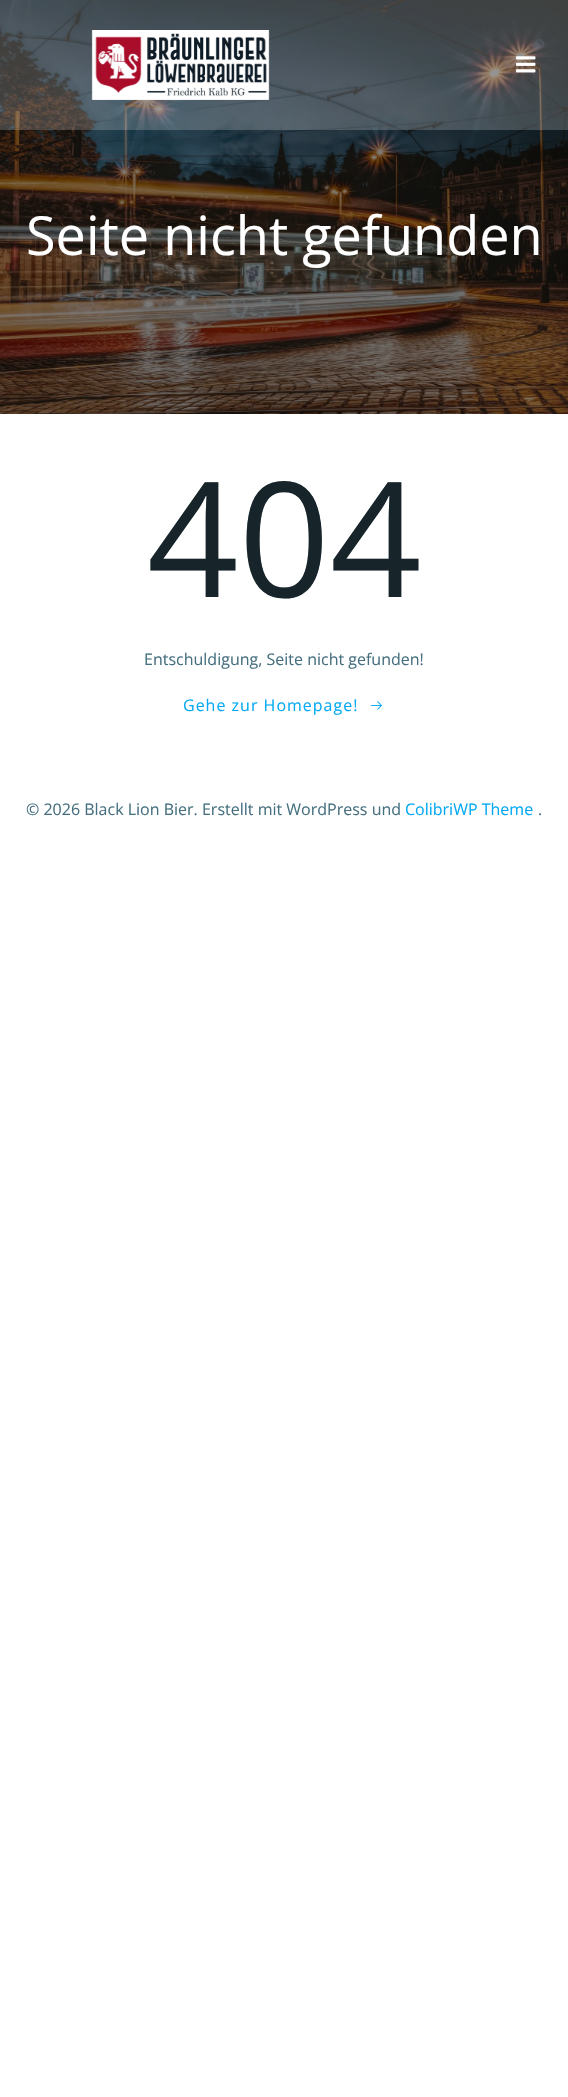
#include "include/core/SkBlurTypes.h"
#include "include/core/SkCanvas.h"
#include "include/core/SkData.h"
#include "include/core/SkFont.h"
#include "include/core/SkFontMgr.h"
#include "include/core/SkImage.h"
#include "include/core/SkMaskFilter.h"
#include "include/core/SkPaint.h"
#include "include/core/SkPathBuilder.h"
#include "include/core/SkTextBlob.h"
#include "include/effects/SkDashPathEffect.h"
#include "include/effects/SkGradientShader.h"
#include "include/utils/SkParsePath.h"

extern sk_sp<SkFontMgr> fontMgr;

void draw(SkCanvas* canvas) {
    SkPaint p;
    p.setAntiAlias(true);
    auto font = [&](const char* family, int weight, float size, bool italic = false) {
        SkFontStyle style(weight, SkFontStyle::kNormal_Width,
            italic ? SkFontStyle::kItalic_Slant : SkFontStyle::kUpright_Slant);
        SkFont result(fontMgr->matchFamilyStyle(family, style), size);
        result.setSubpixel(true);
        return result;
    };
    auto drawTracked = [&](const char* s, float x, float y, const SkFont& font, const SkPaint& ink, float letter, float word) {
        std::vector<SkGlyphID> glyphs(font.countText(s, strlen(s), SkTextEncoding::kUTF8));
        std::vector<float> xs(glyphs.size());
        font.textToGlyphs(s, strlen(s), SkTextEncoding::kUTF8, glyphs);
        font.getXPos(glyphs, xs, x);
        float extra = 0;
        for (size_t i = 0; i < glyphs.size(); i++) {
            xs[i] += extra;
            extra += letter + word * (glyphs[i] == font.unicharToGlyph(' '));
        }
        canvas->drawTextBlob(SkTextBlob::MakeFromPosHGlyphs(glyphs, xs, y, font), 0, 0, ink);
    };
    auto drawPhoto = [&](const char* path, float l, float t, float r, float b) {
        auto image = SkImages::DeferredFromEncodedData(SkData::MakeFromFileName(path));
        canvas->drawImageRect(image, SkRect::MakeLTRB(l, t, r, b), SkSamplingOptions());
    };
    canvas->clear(0xFFFFFFFF);
    drawPhoto("media/3.png", 0, 0, 568, 414);
    p.setColor(0x33FFFFFF);
    canvas->drawRect(SkRect::MakeLTRB(0, 0, 568, 130), p);
    drawPhoto("media/1.png", 91, 30, 270, 100);
    drawPhoto("media/2.png", 516, 56, 536, 73);
    auto font1 = font("Open Sans", 400, 54);
    p.setColor(0xFFFFFFFF);
    canvas->drawString("Seite nicht gefunden", 26, 255, font1, p);
    auto font2 = font("Open Sans", 400, 160);
    p.setColor(0xFF17252A);
    canvas->drawString("404", 147, 597, font2, p);
    auto font3 = font("Open Sans", 400, 16);
    p.setColor(0xFF46707F);
    canvas->drawString("Entschuldigung, Seite nicht gefunden!", 144, 665, font3, p);
    p.setColor(0xFF03A9F4);
    drawTracked("Gehe zur Homepage!", 183, 711, font3, p, 1, 0);
    drawPhoto("media/4.png", 370, 701, 382, 710);
    p.setColor(0xFF46707F);
    canvas->drawString("© 2026 Black Lion Bier. Erstellt mit WordPress und", 26, 815, font3, p);
    p.setColor(0xFF03A9F4);
    canvas->drawString("ColibriWP Theme", 405, 815, font3, p);
    p.setColor(0xFF46707F);
    canvas->drawString(".", 538, 815, font3, p);
}
